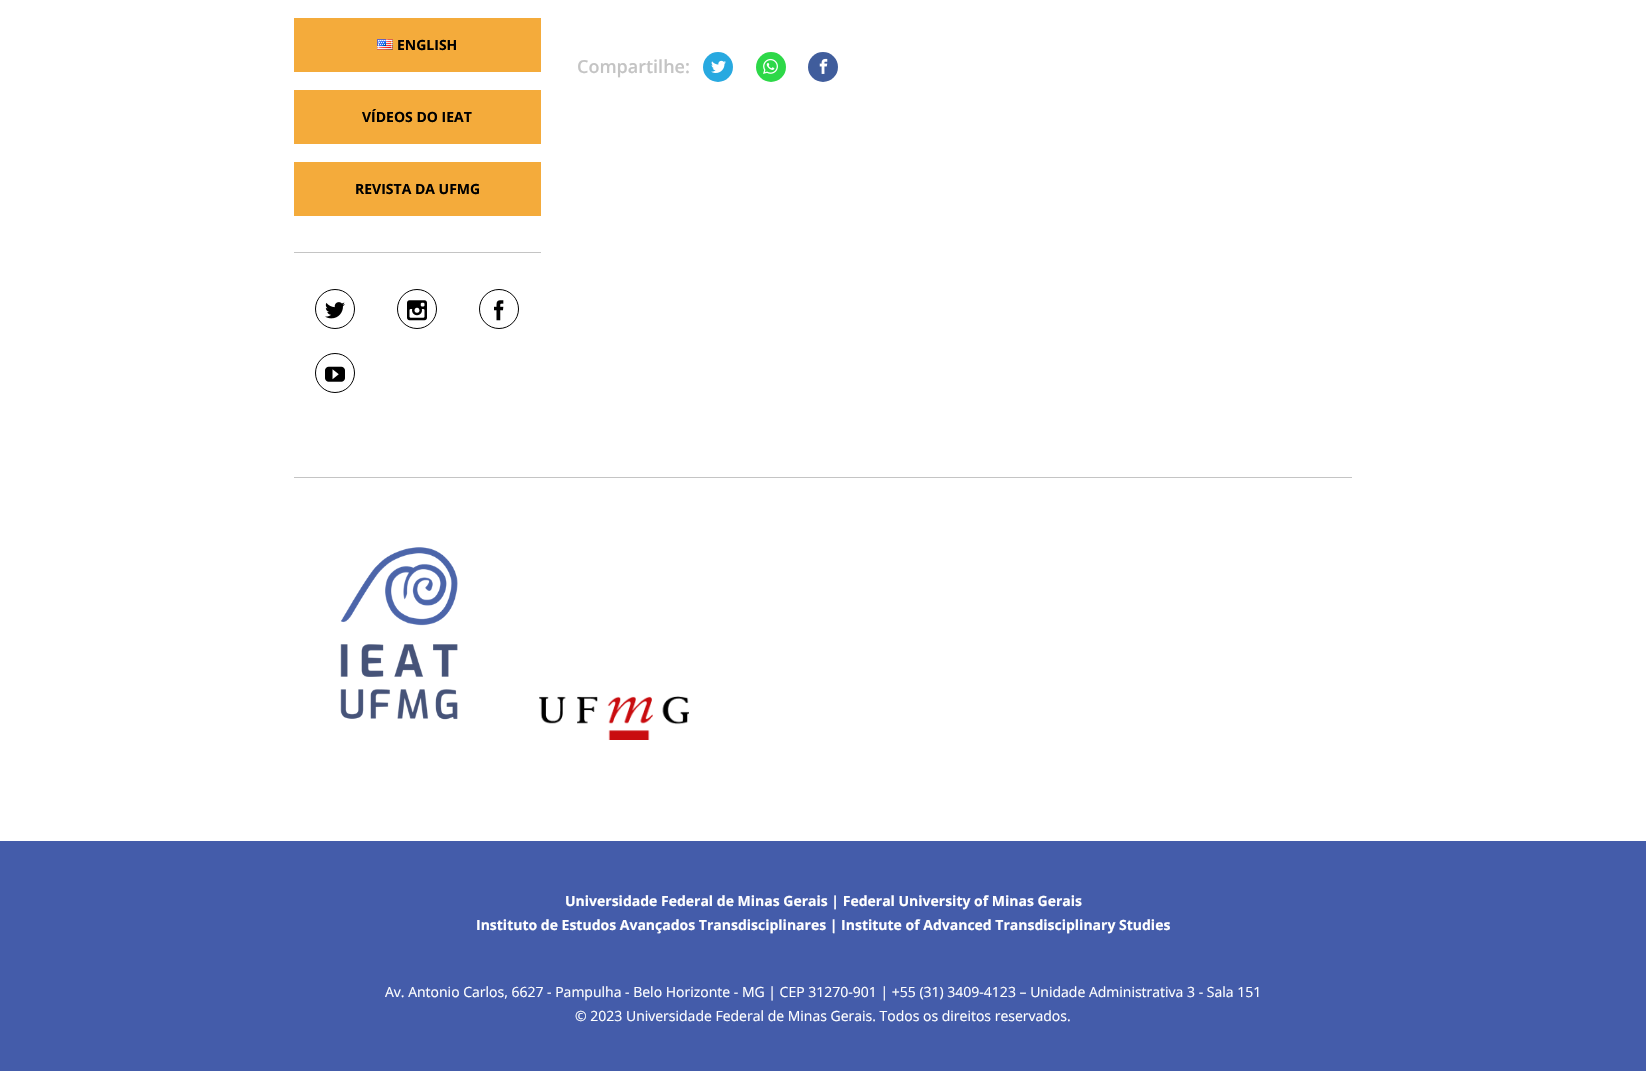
#include "include/core/SkBlurTypes.h"
#include "include/core/SkCanvas.h"
#include "include/core/SkData.h"
#include "include/core/SkFont.h"
#include "include/core/SkFontMgr.h"
#include "include/core/SkImage.h"
#include "include/core/SkMaskFilter.h"
#include "include/core/SkPaint.h"
#include "include/core/SkPathBuilder.h"
#include "include/core/SkTextBlob.h"
#include "include/effects/SkDashPathEffect.h"
#include "include/effects/SkGradientShader.h"
#include "include/utils/SkParsePath.h"

extern sk_sp<SkFontMgr> fontMgr;

void draw(SkCanvas* canvas) {
    SkPaint p;
    p.setAntiAlias(true);
    auto font = [&](const char* family, int weight, float size, bool italic = false) {
        SkFontStyle style(weight, SkFontStyle::kNormal_Width,
            italic ? SkFontStyle::kItalic_Slant : SkFontStyle::kUpright_Slant);
        SkFont result(fontMgr->matchFamilyStyle(family, style), size);
        result.setSubpixel(true);
        return result;
    };
    auto drawPhoto = [&](const char* path, float l, float t, float r, float b) {
        auto image = SkImages::DeferredFromEncodedData(SkData::MakeFromFileName(path));
        canvas->drawImageRect(image, SkRect::MakeLTRB(l, t, r, b), SkSamplingOptions());
    };
    canvas->clear(0xFFFFFFFF);
    p.setColor(0xFFF4AB3B);
    canvas->drawRect(SkRect::MakeLTRB(294, 18, 541, 72), p);
    drawPhoto("media/1.png", 377, 39, 393, 50);
    auto font1 = font("Open Sans", 700, 14);
    p.setColor(0xFF000000);
    canvas->drawString("ENGLISH", 397, 50, font1, p);
    p.setColor(0xFFF4AB3B);
    canvas->drawRect(SkRect::MakeLTRB(294, 90, 541, 144), p);
    p.setColor(0xFF000000);
    canvas->drawString("VÍDEOS DO IEAT", 362, 122, font1, p);
    p.setColor(0xFFF4AB3B);
    canvas->drawRect(SkRect::MakeLTRB(294, 162, 541, 216), p);
    p.setColor(0xFF000000);
    canvas->drawString("REVISTA DA UFMG", 355, 194, font1, p);
    p.setColor(0xFFC4C4C4);
    canvas->drawRect(SkRect::MakeLTRB(294, 252, 541, 253), p);
    p.setStyle(SkPaint::kStroke_Style);
    p.setStrokeWidth(1);
    p.setColor(0xFF000000);
    canvas->drawCircle(335, 309, 19.5f, p);
    drawPhoto("media/2.png", 325, 302, 345, 319);
    canvas->drawCircle(417, 309, 19.5f, p);
    drawPhoto("media/3.png", 407, 300, 427, 321);
    canvas->drawCircle(499, 309, 19.5f, p);
    drawPhoto("media/4.png", 494, 300, 504, 321);
    canvas->drawCircle(335, 373, 19.5f, p);
    drawPhoto("media/5.png", 325, 366, 345, 382);
    auto font2 = font("Open Sans", 600, 18);
    p.setStyle(SkPaint::kFill_Style);
    p.setColor(0xFFC4C4C4);
    canvas->drawString("Compartilhe:", 577, 73, font2, p);
    p.setColor(0xFF28A9E0);
    canvas->drawCircle(718, 67, 15, p);
    drawPhoto("media/6.png", 711, 60, 726, 73);
    p.setColor(0xFF2DD848);
    canvas->drawCircle(771, 67, 15, p);
    drawPhoto("media/7.png", 763, 58, 778, 74);
    p.setColor(0xFF405D9C);
    canvas->drawCircle(823, 67, 15, p);
    drawPhoto("media/8.png", 819, 58, 828, 74);
    p.setColor(0xFFC4C4C4);
    canvas->drawRect(SkRect::MakeLTRB(294, 477, 1352, 478), p);
    drawPhoto("media/9.png", 340, 547, 458, 720);
    drawPhoto("media/10.png", 539, 696, 689, 740);
    p.setColor(0xFF445CAA);
    canvas->drawRect(SkRect::MakeLTRB(0, 841, 1646, 1071), p);
    p.setColor(0xFFFFFFFF);
    canvas->drawString("Universidade Federal de Minas Gerais | Federal University of Minas Gerais", 565, 906, font1, p);
    canvas->drawString("Instituto de Estudos Avançados Transdisciplinares | Institute of Advanced Transdisciplinary Studies", 476, 930, font1, p);
    auto font3 = font("Open Sans", 400, 14);
    canvas->drawString("Av. Antonio Carlos, 6627 - Pampulha - Belo Horizonte - MG | CEP 31270-901 | +55 (31) 3409-4123 – Unidade Administrativa 3 - Sala 151", 385, 997, font3, p);
    canvas->drawString("© 2023 Universidade Federal de Minas Gerais. Todos os direitos reservados.", 575, 1021, font3, p);
}
